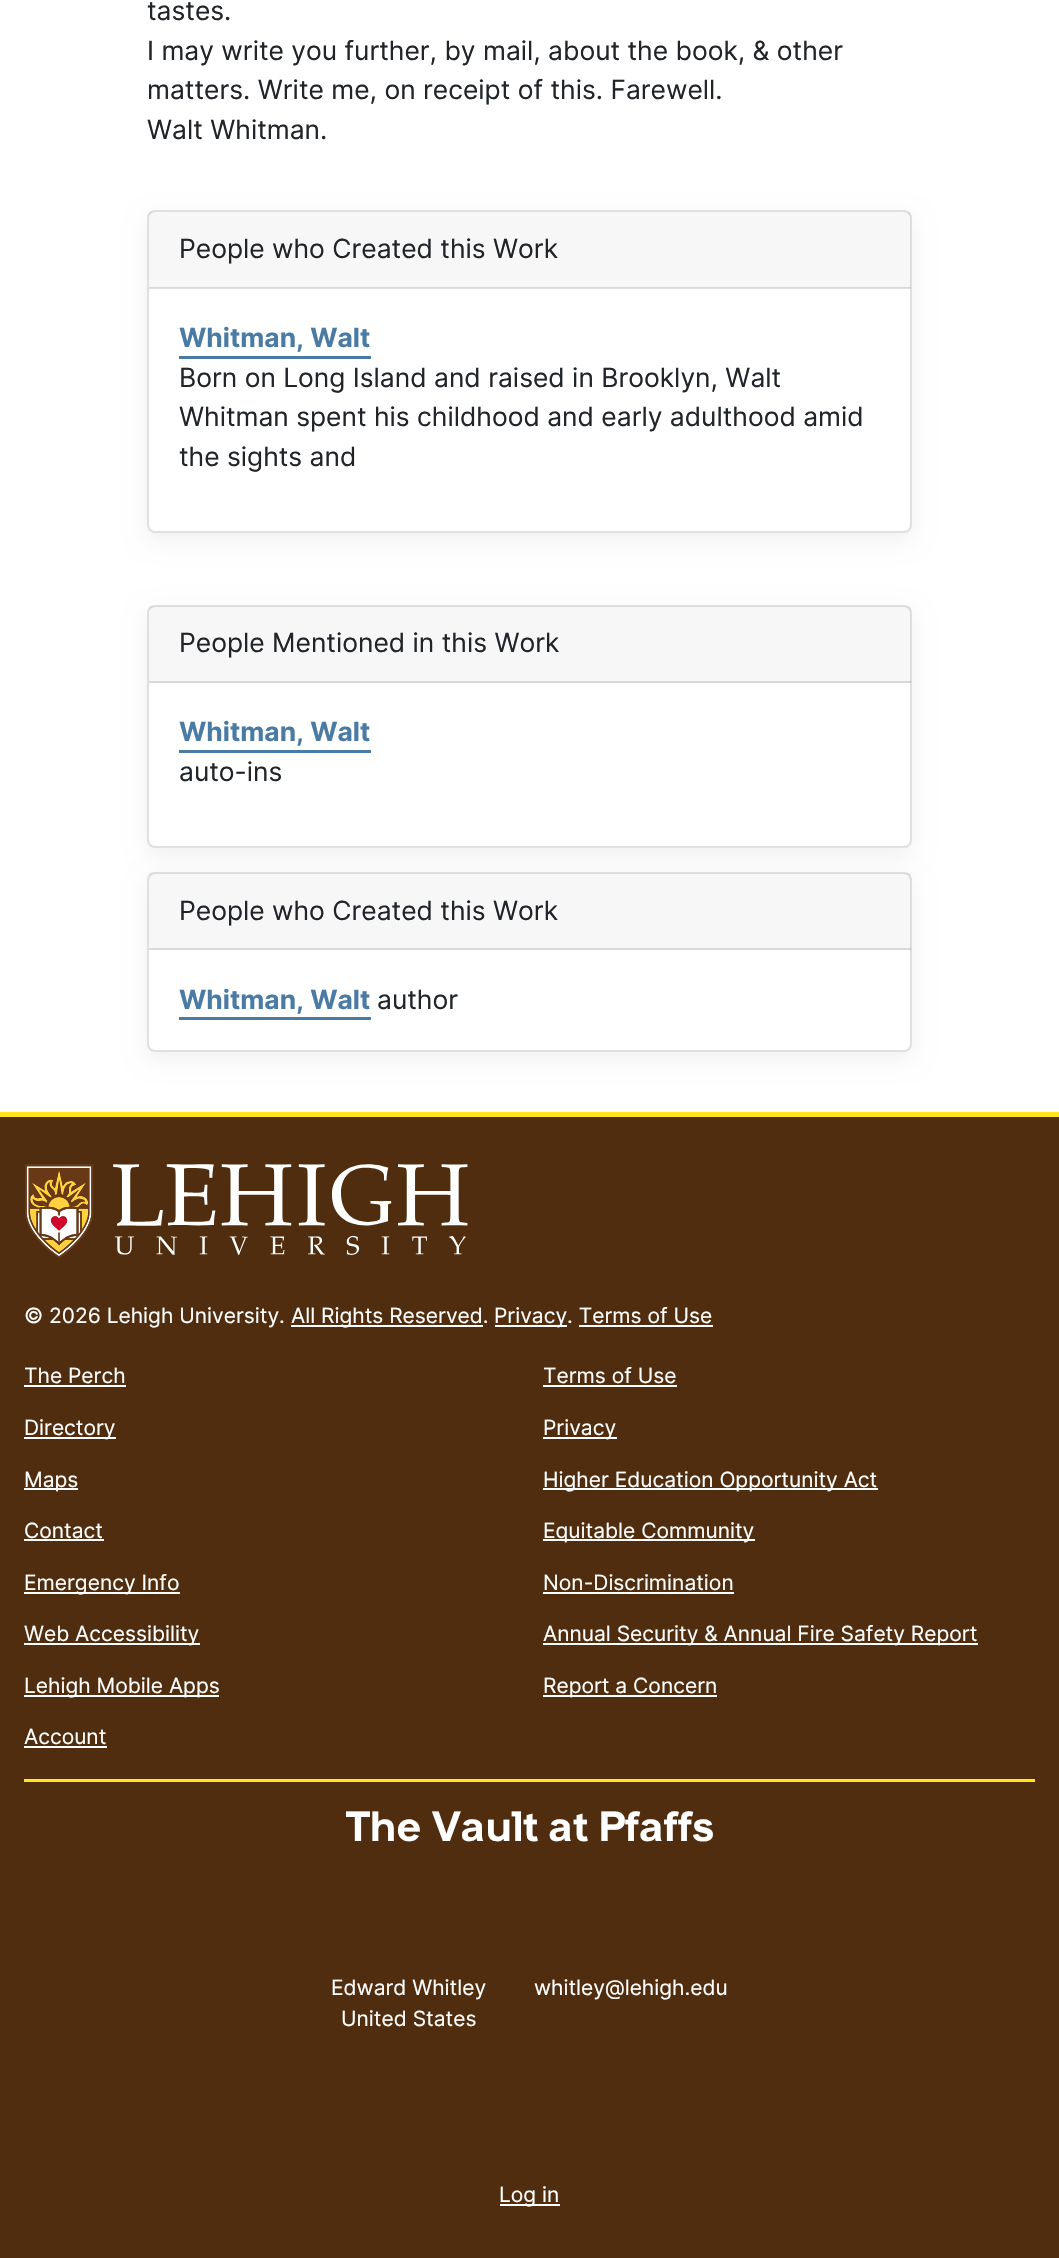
#include "include/core/SkBlurTypes.h"
#include "include/core/SkCanvas.h"
#include "include/core/SkData.h"
#include "include/core/SkFont.h"
#include "include/core/SkFontMgr.h"
#include "include/core/SkImage.h"
#include "include/core/SkMaskFilter.h"
#include "include/core/SkPaint.h"
#include "include/core/SkPathBuilder.h"
#include "include/core/SkTextBlob.h"
#include "include/effects/SkDashPathEffect.h"
#include "include/effects/SkGradientShader.h"
#include "include/utils/SkParsePath.h"

extern sk_sp<SkFontMgr> fontMgr;

void draw(SkCanvas* canvas) {
    SkPaint p;
    p.setAntiAlias(true);
    auto font = [&](const char* family, int weight, float size, bool italic = false) {
        SkFontStyle style(weight, SkFontStyle::kNormal_Width,
            italic ? SkFontStyle::kItalic_Slant : SkFontStyle::kUpright_Slant);
        SkFont result(fontMgr->matchFamilyStyle(family, style), size);
        result.setSubpixel(true);
        return result;
    };
    auto drawPhoto = [&](const char* path, float l, float t, float r, float b) {
        auto image = SkImages::DeferredFromEncodedData(SkData::MakeFromFileName(path));
        canvas->drawImageRect(image, SkRect::MakeLTRB(l, t, r, b), SkSamplingOptions());
    };
    canvas->clear(0xFFFFFFFF);
    auto font1 = font("Inter", 400, 26.4f);
    p.setColor(0xFF212529);
    {
        const struct { const char* s; float x, y; } items[] = {
            {"tastes.", 147, 20},
            {"I may write you further, by mail, about the book, & other", 147, 60},
            {"matters. Write me, on receipt of this. Farewell.", 147, 99},
            {"Walt Whitman.", 147, 139},
        };
        for (auto [s, x, y] : items) {
            canvas->drawString(s, x, y, font1, p);
        }
    }
    p.setColor(0xFFF0F0F0);
    p.setMaskFilter(SkMaskFilter::MakeBlur(kNormal_SkBlurStyle, 11));
    canvas->drawRoundRect(SkRect::MakeLTRB(147, 218, 912, 540), 8, 8, p);
    p.setMaskFilter(nullptr);
    p.setColor(0xFFFFFFFF);
    canvas->drawRoundRect(SkRect::MakeLTRB(147, 210, 912, 533), 8, 8, p);
    p.setStyle(SkPaint::kStroke_Style);
    p.setStrokeWidth(2);
    p.setColor(0x1F000000);
    canvas->drawRoundRect(SkRect::MakeLTRB(148, 211, 911, 532), 7, 7, p);
    p.setStyle(SkPaint::kFill_Style);
    p.setColor(0x08000000);
    canvas->drawRect(SkRect::MakeLTRB(149, 212, 911, 288), p);
    p.setColor(0x1F000000);
    canvas->drawRect(SkRect::MakeLTRB(149, 287, 911, 289), p);
    p.setColor(0xFF212529);
    canvas->drawString("People who Created this Work", 179, 258, font1, p);
    auto font2 = font("Inter", 700, 26.4f);
    p.setColor(0xFF497BA4);
    canvas->drawString("Whitman, Walt", 179, 347, font2, p);
    canvas->drawRect(SkRect::MakeLTRB(179, 356, 371, 359), p);
    p.setColor(0xFF212529);
    {
        const struct { const char* s; float x, y; } items[] = {
            {"Born on Long Island and raised in Brooklyn, Walt", 179, 387},
            {"Whitman spent his childhood and early adulthood amid", 179, 426},
            {"the sights and", 179, 466},
        };
        for (auto [s, x, y] : items) {
            canvas->drawString(s, x, y, font1, p);
        }
    }
    p.setColor(0xFFF0F0F0);
    p.setMaskFilter(SkMaskFilter::MakeBlur(kNormal_SkBlurStyle, 11));
    canvas->drawRoundRect(SkRect::MakeLTRB(147, 612, 912, 855), 8, 8, p);
    p.setMaskFilter(nullptr);
    p.setColor(0xFFFFFFFF);
    canvas->drawRoundRect(SkRect::MakeLTRB(147, 605, 912, 848), 8, 8, p);
    p.setStyle(SkPaint::kStroke_Style);
    p.setColor(0x1F000000);
    canvas->drawRoundRect(SkRect::MakeLTRB(148, 606, 911, 847), 7, 7, p);
    p.setStyle(SkPaint::kFill_Style);
    p.setColor(0x08000000);
    canvas->drawRect(SkRect::MakeLTRB(149, 606, 911, 683), p);
    p.setColor(0x1F000000);
    canvas->drawRect(SkRect::MakeLTRB(149, 681, 911, 683), p);
    p.setColor(0xFF212529);
    canvas->drawString("People Mentioned in this Work", 179, 652, font1, p);
    p.setColor(0xFF497BA4);
    canvas->drawString("Whitman, Walt", 179, 741, font2, p);
    canvas->drawRect(SkRect::MakeLTRB(179, 750, 371, 753), p);
    p.setColor(0xFF212529);
    canvas->drawString("auto-ins", 179, 781, font1, p);
    p.setColor(0xFFF0F0F0);
    p.setMaskFilter(SkMaskFilter::MakeBlur(kNormal_SkBlurStyle, 11));
    canvas->drawRoundRect(SkRect::MakeLTRB(147, 879, 912, 1059), 8, 8, p);
    p.setMaskFilter(nullptr);
    p.setColor(0xFFFFFFFF);
    canvas->drawRoundRect(SkRect::MakeLTRB(147, 872, 912, 1052), 8, 8, p);
    p.setStyle(SkPaint::kStroke_Style);
    p.setColor(0x1F000000);
    canvas->drawRoundRect(SkRect::MakeLTRB(148, 873, 911, 1051), 7, 7, p);
    p.setStyle(SkPaint::kFill_Style);
    p.setColor(0x08000000);
    canvas->drawRect(SkRect::MakeLTRB(149, 873, 911, 950), p);
    p.setColor(0x1F000000);
    canvas->drawRect(SkRect::MakeLTRB(149, 948, 911, 950), p);
    p.setColor(0xFF212529);
    canvas->drawString("People who Created this Work", 179, 920, font1, p);
    p.setColor(0xFF497BA4);
    canvas->drawString("Whitman, Walt", 179, 1009, font2, p);
    canvas->drawRect(SkRect::MakeLTRB(179, 1017, 371, 1020), p);
    p.setColor(0xFF212529);
    canvas->drawString("author", 377, 1009, font1, p);
    {
        const struct { float l, t, r, b; SkColor color; } items[] = {
            {0, 1117, 1059, 2258, 0xFF502D0E},
            {0, 1112, 1059, 1117, 0xFFFFE41E},
            {24, 1779, 1035, 1782, 0xFFFFE41E},
        };
        for (auto [l, t, r, b, color] : items) {
            p.setColor(color);
            canvas->drawRect(SkRect::MakeLTRB(l, t, r, b), p);
        }
    }
    drawPhoto("media/1.png", 25, 1164, 468, 1259);
    auto font3 = font("Inter", 400, 21);
    p.setColor(0xFFFFFFFF);
    canvas->drawString("© 2026 Lehigh University.", 24, 1323, font3, p);
    canvas->drawRect(SkRect::MakeLTRB(291, 1325, 483, 1327), p);
    canvas->drawString("All Rights Reserved.", 291, 1323, font3, p);
    canvas->drawRect(SkRect::MakeLTRB(495, 1325, 567, 1327), p);
    canvas->drawString("Privacy. Terms of Use", 494, 1323, font3, p);
    canvas->drawRect(SkRect::MakeLTRB(579, 1325, 713, 1327), p);
    canvas->drawString("The Perch", 24, 1383, font3, p);
    canvas->drawRect(SkRect::MakeLTRB(24, 1385, 126, 1387), p);
    canvas->drawString("Terms of Use", 543, 1383, font3, p);
    canvas->drawRect(SkRect::MakeLTRB(543, 1385, 677, 1387), p);
    canvas->drawRect(SkRect::MakeLTRB(24, 1437, 116, 1439), p);
    canvas->drawString("Directory", 24, 1435, font3, p);
    canvas->drawRect(SkRect::MakeLTRB(543, 1437, 617, 1439), p);
    canvas->drawString("Privacy", 543, 1435, font3, p);
    canvas->drawRect(SkRect::MakeLTRB(24, 1488, 78, 1490), p);
    canvas->drawString("Maps", 24, 1487, font3, p);
    canvas->drawRect(SkRect::MakeLTRB(543, 1488, 878, 1490), p);
    canvas->drawString("Higher Education Opportunity Act", 543, 1487, font3, p);
    canvas->drawString("Contact", 24, 1538, font3, p);
    canvas->drawRect(SkRect::MakeLTRB(24, 1539, 104, 1541), p);
    canvas->drawRect(SkRect::MakeLTRB(543, 1539, 755, 1541), p);
    canvas->drawString("Equitable Community", 543, 1538, font3, p);
    canvas->drawRect(SkRect::MakeLTRB(24, 1592, 180, 1594), p);
    canvas->drawString("Emergency Info", 24, 1590, font3, p);
    canvas->drawString("Non-Discrimination", 543, 1590, font3, p);
    canvas->drawRect(SkRect::MakeLTRB(543, 1592, 734, 1594), p);
    canvas->drawRect(SkRect::MakeLTRB(24, 1643, 200, 1645), p);
    canvas->drawString("Web Accessibility", 24, 1641, font3, p);
    canvas->drawRect(SkRect::MakeLTRB(543, 1643, 978, 1645), p);
    canvas->drawString("Annual Security & Annual Fire Safety Report", 543, 1641, font3, p);
    canvas->drawRect(SkRect::MakeLTRB(24, 1695, 219, 1697), p);
    canvas->drawString("Lehigh Mobile Apps", 24, 1693, font3, p);
    canvas->drawRect(SkRect::MakeLTRB(543, 1695, 717, 1697), p);
    canvas->drawString("Report a Concern", 543, 1693, font3, p);
    canvas->drawString("Account", 24, 1744, font3, p);
    canvas->drawRect(SkRect::MakeLTRB(24, 1746, 107, 1748), p);
    auto font4 = font("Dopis", 700, 42);
    canvas->drawString("The Vault at Pfaffs", 346, 1841, font4, p);
    {
        const struct { const char* s; float x, y; } items[] = {
            {"Edward Whitley", 331, 1995},
            {"United States", 341, 2026},
            {"whitley@lehigh.edu", 534, 1995},
        };
        for (auto [s, x, y] : items) {
            canvas->drawString(s, x, y, font3, p);
        }
    }
    canvas->drawRect(SkRect::MakeLTRB(500, 2204, 560, 2206), p);
    canvas->drawString("Log in", 499, 2202, font3, p);
}
